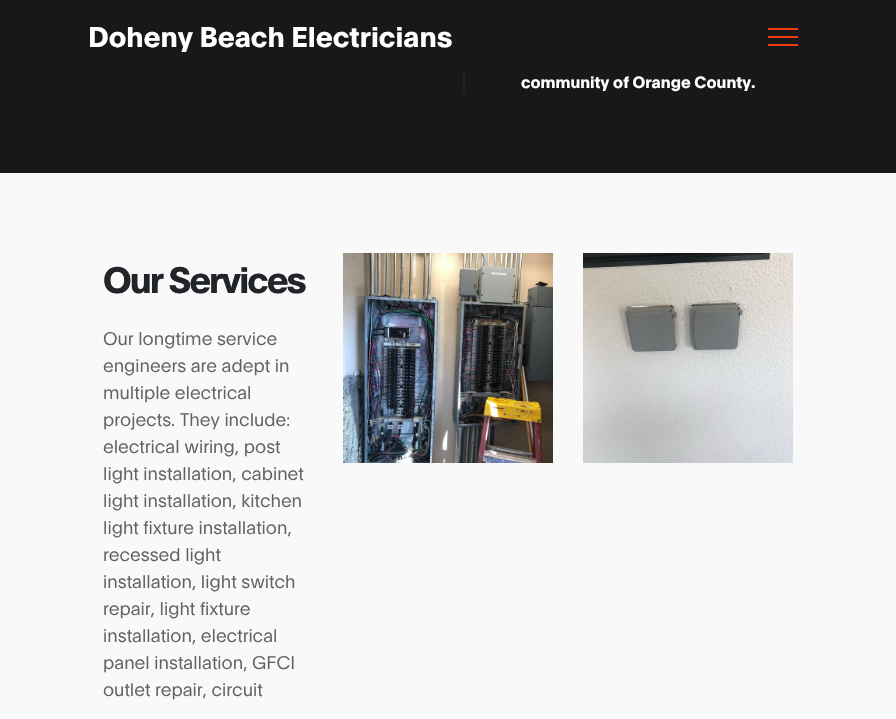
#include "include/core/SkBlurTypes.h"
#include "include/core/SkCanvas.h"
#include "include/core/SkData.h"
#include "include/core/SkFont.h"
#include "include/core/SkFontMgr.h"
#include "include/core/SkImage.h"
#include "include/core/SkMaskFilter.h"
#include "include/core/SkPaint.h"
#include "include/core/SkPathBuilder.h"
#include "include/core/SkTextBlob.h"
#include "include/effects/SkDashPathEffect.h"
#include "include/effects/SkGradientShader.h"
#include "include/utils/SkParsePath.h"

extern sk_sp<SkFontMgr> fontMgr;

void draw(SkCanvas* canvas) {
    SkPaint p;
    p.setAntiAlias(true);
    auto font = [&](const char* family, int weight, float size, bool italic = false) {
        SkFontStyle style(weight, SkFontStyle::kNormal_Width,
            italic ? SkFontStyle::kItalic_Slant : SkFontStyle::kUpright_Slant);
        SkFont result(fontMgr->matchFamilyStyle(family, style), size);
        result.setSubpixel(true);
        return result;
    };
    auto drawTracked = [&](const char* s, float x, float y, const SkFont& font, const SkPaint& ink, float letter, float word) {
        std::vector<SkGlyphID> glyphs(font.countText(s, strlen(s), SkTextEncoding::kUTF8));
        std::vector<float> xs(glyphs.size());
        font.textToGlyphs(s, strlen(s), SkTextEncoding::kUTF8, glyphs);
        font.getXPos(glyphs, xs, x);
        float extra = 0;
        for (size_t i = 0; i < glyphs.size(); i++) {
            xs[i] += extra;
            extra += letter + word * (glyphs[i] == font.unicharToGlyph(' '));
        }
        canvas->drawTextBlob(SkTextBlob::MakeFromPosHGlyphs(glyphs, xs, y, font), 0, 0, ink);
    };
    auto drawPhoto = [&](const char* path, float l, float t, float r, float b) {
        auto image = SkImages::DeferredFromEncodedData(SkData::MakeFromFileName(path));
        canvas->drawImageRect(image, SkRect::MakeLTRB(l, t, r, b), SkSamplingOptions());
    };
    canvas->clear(0xFF171819);
    auto font1 = font("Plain", 700, 28);
    p.setColor(0xFFFFFFFF);
    canvas->drawString("Doheny Beach Electricians", 88, 47, font1, p);
    {
        const struct { float l, t, r, b; SkColor color; } items[] = {
            {768, 36, 798, 38, 0xFFF13A11},
            {768, 28, 798, 30, 0xFFF13A11},
            {768, 44, 798, 46, 0xFFF13A11},
            {463, 74, 465, 93, 0xFF212529},
        };
        for (auto [l, t, r, b, color] : items) {
            p.setColor(color);
            canvas->drawRect(SkRect::MakeLTRB(l, t, r, b), p);
        }
    }
    auto font2 = font("Plain", 700, 16);
    p.setColor(0xFFFFFFFF);
    canvas->drawString("community of Orange County.", 521, 88, font2, p);
    p.setColor(0xFFF9F9F9);
    canvas->drawRect(SkRect::MakeLTRB(0, 173, 896, 719), p);
    auto font3 = font("Plain", 700, 36);
    p.setColor(0xFF212529);
    drawTracked("Our Services", 103, 293, font3, p, -2, 0);
    auto font4 = font("Plain", 300, 18);
    p.setColor(0xFF666262);
    {
        const struct { const char* s; float x, y; } items[] = {
            {"Our longtime service", 103, 345},
            {"engineers are adept in", 103, 372},
            {"multiple electrical", 103, 399},
            {"projects. They include:", 103, 426},
            {"electrical wiring, post", 103, 453},
            {"light installation, cabinet", 103, 480},
            {"light installation, kitchen", 103, 507},
            {"light fixture installation,", 103, 534},
            {"recessed light", 103, 561},
            {"installation, light switch", 103, 588},
            {"repair, light fixture", 103, 615},
            {"installation, electrical", 103, 642},
            {"panel installation, GFCI", 103, 669},
            {"outlet repair, circuit", 103, 696},
        };
        for (auto [s, x, y] : items) {
            canvas->drawString(s, x, y, font4, p);
        }
    }
    drawPhoto("media/1.png", 343, 253, 553, 463);
    drawPhoto("media/2.png", 583, 253, 793, 463);
}
